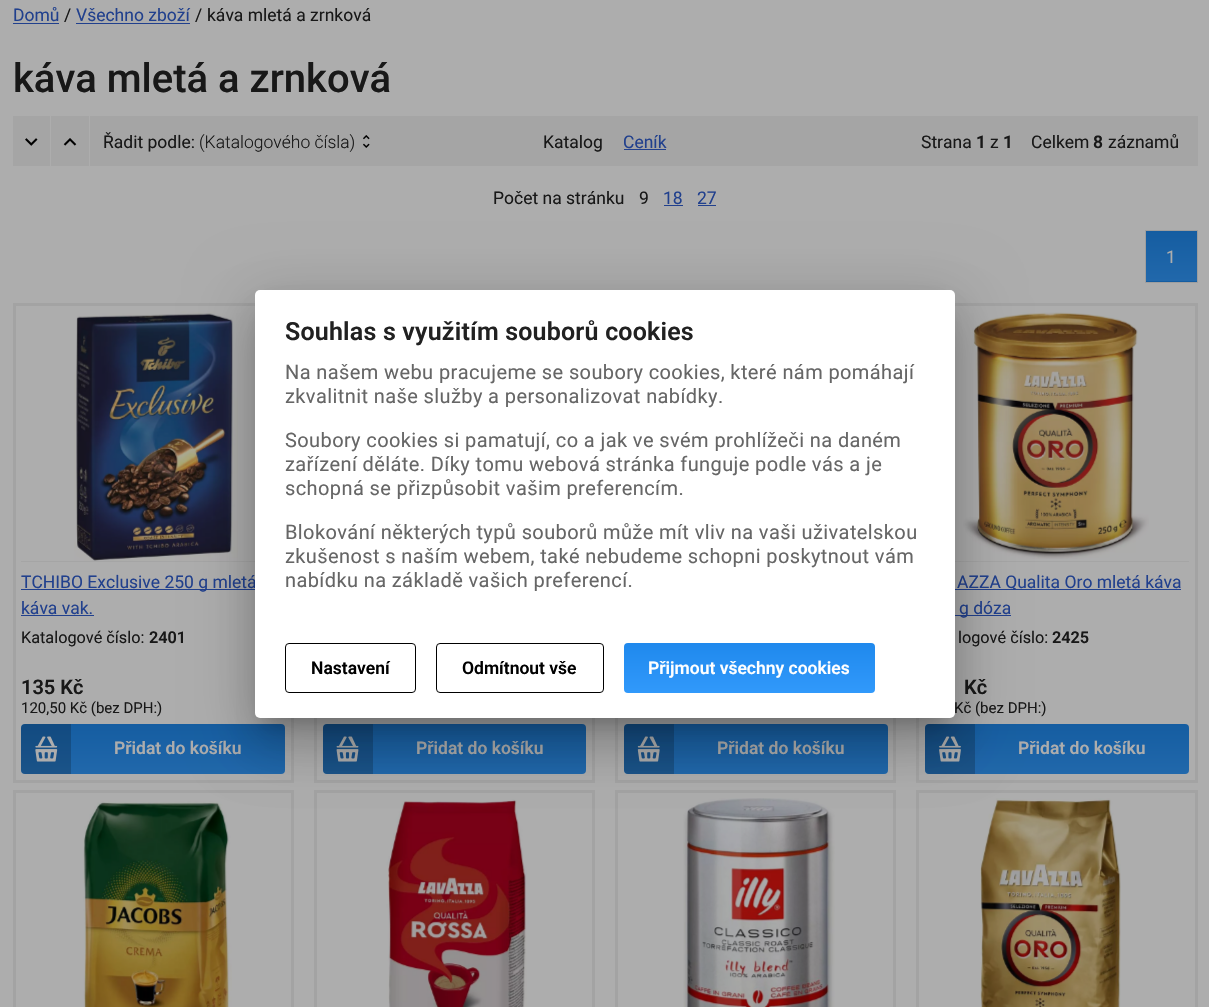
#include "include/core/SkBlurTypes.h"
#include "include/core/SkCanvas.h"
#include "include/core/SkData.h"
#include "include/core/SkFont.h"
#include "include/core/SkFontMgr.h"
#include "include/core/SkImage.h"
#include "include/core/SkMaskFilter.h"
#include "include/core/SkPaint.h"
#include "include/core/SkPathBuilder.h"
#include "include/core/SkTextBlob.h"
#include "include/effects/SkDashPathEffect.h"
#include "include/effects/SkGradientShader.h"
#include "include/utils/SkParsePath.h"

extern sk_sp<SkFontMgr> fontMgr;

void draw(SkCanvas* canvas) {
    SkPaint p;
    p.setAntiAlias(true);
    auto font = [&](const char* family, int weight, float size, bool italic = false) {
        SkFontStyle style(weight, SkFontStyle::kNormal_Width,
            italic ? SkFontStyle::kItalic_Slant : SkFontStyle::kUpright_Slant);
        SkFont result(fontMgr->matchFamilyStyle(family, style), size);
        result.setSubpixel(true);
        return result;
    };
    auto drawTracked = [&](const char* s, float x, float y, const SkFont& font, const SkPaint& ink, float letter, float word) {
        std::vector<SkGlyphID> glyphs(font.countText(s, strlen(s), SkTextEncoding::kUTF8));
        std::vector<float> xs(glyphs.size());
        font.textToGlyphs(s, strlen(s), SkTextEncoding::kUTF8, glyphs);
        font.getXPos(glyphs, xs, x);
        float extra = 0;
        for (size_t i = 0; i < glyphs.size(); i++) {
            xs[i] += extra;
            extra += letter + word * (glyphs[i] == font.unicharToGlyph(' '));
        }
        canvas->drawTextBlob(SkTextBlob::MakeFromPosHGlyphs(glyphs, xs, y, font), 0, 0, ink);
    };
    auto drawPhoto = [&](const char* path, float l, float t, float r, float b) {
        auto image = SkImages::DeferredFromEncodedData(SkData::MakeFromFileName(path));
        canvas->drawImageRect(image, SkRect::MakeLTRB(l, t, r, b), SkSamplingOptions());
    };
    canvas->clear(0xFFADADAD);
    auto font1 = font("Roboto", 400, 17.5f);
    p.setColor(0xFF21408D);
    canvas->drawString("Domů", 13, 21, font1, p);
    canvas->drawRect(SkRect::MakeLTRB(13, 23, 59, 24), p);
    p.setColor(0xFF181818);
    canvas->drawString("/", 64, 21, font1, p);
    p.setColor(0xFF21408D);
    canvas->drawString("Všechno zboží", 76, 21, font1, p);
    canvas->drawRect(SkRect::MakeLTRB(76, 23, 190, 24), p);
    p.setColor(0xFF181818);
    canvas->drawString("/", 195, 21, font1, p);
    canvas->drawString("káva mletá a zrnková", 207, 21, font1, p);
    auto font2 = font("Roboto", 500, 40);
    canvas->drawString("káva mletá a zrnková", 13, 92, font2, p);
    p.setColor(0xFFA5A5A5);
    canvas->drawRect(SkRect::MakeLTRB(13, 116, 1198, 166), p);
    p.setColor(0xFFADADAD);
    canvas->drawRect(SkRect::MakeLTRB(50, 116, 51, 166), p);
    drawPhoto("media/1.png", 25, 138, 38, 146);
    canvas->drawRect(SkRect::MakeLTRB(89, 116, 90, 166), p);
    drawPhoto("media/2.png", 63, 138, 77, 146);
    p.setColor(0xFF181818);
    canvas->drawString("Řadit podle:", 103, 148, font1, p);
    auto font3 = font("Roboto", 300, 17.5f);
    canvas->drawString("(Katalogového čísla)", 199, 148, font3, p);
    drawPhoto("media/3.png", 363, 135, 370, 148);
    canvas->drawString("Katalog", 543, 148, font1, p);
    p.setColor(0xFF21408D);
    canvas->drawString("Ceník", 623, 148, font1, p);
    canvas->drawRect(SkRect::MakeLTRB(624, 149, 666, 150), p);
    p.setColor(0xFF181818);
    canvas->drawString("Strana", 921, 148, font1, p);
    auto font4 = font("Roboto", 600, 17.5f);
    canvas->drawString("1", 976, 148, font4, p);
    canvas->drawString("z", 990, 148, font1, p);
    canvas->drawString("1", 1003, 148, font4, p);
    canvas->drawString("Celkem", 1031, 148, font1, p);
    canvas->drawString("8", 1093, 148, font4, p);
    {
        const struct { const char* s; float x, y; } items[] = {
            {"záznamů", 1108, 148},
            {"Počet na stránku", 493, 204},
            {"9", 639, 204},
        };
        for (auto [s, x, y] : items) {
            canvas->drawString(s, x, y, font1, p);
        }
    }
    p.setColor(0xFF21408D);
    canvas->drawString("18", 663, 204, font1, p);
    canvas->drawRect(SkRect::MakeLTRB(664, 205, 683, 206), p);
    canvas->drawString("27", 697, 204, font1, p);
    canvas->drawRect(SkRect::MakeLTRB(698, 205, 716, 206), p);
    {
        const SkColor colors[] = {0xFF2168AB, 0xFF155DA1};
        const float stops[] = {0, 1};
        const SkPoint ends[] = {{1171, 281}, {1171, 231}};
        p.setShader(SkGradientShader::MakeLinear(ends, colors, stops, 2, SkTileMode::kClamp));
        p.setAlpha(255);
    }
    canvas->drawRect(SkRect::MakeLTRB(1146, 231, 1197, 281), p);
    {
        const SkColor colors[] = {0xFF2168AB, 0xFF155DA1};
        const float stops[] = {0, 1};
        const SkPoint ends[] = {{1171, 331}, {1171, 281}};
        p.setShader(SkGradientShader::MakeLinear(ends, colors, stops, 2, SkTileMode::kClamp));
        p.setAlpha(255);
    }
    canvas->drawRect(SkRect::MakeLTRB(1145, 281, 1198, 282), p);
    p.setStyle(SkPaint::kStroke_Style);
    p.setStrokeWidth(1);
    p.setShader(nullptr);
    p.setColor(0xFF9E9E9E);
    canvas->drawRect(SkRect::MakeLTRB(1145.5f, 230.5f, 1197.5f, 282.5f), p);
    p.setStyle(SkPaint::kFill_Style);
    p.setColor(0xFFADADAD);
    canvas->drawString("1", 1166, 263, font1, p);
    p.setStyle(SkPaint::kStroke_Style);
    p.setStrokeWidth(3);
    p.setColor(0xFFA3A3A3);
    canvas->drawRect(SkRect::MakeLTRB(14.5f, 304.5f, 292.5f, 781.5f), p);
    p.setStyle(SkPaint::kFill_Style);
    p.setColor(0xFFA5A5A5);
    canvas->drawRect(SkRect::MakeLTRB(21, 561, 255, 562), p);
    drawPhoto("media/4.png", 74, 311, 238, 561);
    p.setColor(0xFF21408D);
    canvas->drawRect(SkRect::MakeLTRB(21, 589, 256, 590), p);
    canvas->drawString("TCHIBO Exclusive 250 g mletá", 21, 588, font1, p);
    canvas->drawString("káva vak.", 21, 614, font1, p);
    canvas->drawRect(SkRect::MakeLTRB(21, 615, 94, 616), p);
    auto font5 = font("Roboto", 400, 16.25f);
    p.setColor(0xFF181818);
    canvas->drawString("Katalogové číslo:", 21, 643, font5, p);
    auto font6 = font("Roboto", 600, 16.25f);
    canvas->drawString("2401", 149, 643, font6, p);
    auto font7 = font("Roboto", 600, 20);
    canvas->drawString("135 Kč", 21, 694, font7, p);
    auto font8 = font("Roboto", 400, 15);
    canvas->drawString("120,50 Kč (bez DPH:)", 21, 713, font8, p);
    {
        const SkColor colors[] = {0xFF2168AB, 0xFF155DA1};
        const float stops[] = {0, 1};
        const SkPoint ends[] = {{153, 774}, {153, 724}};
        p.setShader(SkGradientShader::MakeLinear(ends, colors, stops, 2, SkTileMode::kClamp));
        p.setAlpha(255);
    }
    canvas->drawRoundRect(SkRect::MakeLTRB(21, 724, 285, 774), 4, 4, p);
    p.setShader(nullptr);
    p.setColor(0x33000000);
    canvas->drawPath(SkPathBuilder().moveTo(25, 724).lineTo(71, 724).lineTo(71, 774).lineTo(25, 774).cubicTo(23, 774, 21, 772, 21, 770).lineTo(21, 728).cubicTo(21, 726, 23, 724, 25, 724).close().detach(), p);
    drawPhoto("media/5.png", 35, 736, 58, 762);
    p.setColor(0xFFADADAD);
    canvas->drawString("Přidat do košíku", 114, 754, font4, p);
    p.setStyle(SkPaint::kStroke_Style);
    p.setColor(0xFFA3A3A3);
    canvas->drawRect(SkRect::MakeLTRB(315.5f, 304.5f, 593.5f, 781.5f), p);
    p.setStyle(SkPaint::kFill_Style);
    {
        const SkColor colors[] = {0xFF2168AB, 0xFF155DA1};
        const float stops[] = {0, 1};
        const SkPoint ends[] = {{454, 774}, {454, 724}};
        p.setShader(SkGradientShader::MakeLinear(ends, colors, stops, 2, SkTileMode::kClamp));
        p.setAlpha(255);
    }
    canvas->drawRoundRect(SkRect::MakeLTRB(323, 724, 586, 774), 4, 4, p);
    p.setShader(nullptr);
    p.setColor(0x33000000);
    canvas->drawPath(SkPathBuilder().moveTo(327, 724).lineTo(373, 724).lineTo(373, 774).lineTo(327, 774).cubicTo(325, 774, 323, 772, 323, 770).lineTo(323, 728).cubicTo(323, 726, 325, 724, 327, 724).close().detach(), p);
    drawPhoto("media/6.png", 336, 736, 359, 762);
    p.setColor(0xFFADADAD);
    canvas->drawString("Přidat do košíku", 416, 754, font4, p);
    p.setStyle(SkPaint::kStroke_Style);
    p.setColor(0xFFA3A3A3);
    canvas->drawRect(SkRect::MakeLTRB(616.5f, 304.5f, 894.5f, 781.5f), p);
    p.setStyle(SkPaint::kFill_Style);
    {
        const SkColor colors[] = {0xFF2168AB, 0xFF155DA1};
        const float stops[] = {0, 1};
        const SkPoint ends[] = {{756, 774}, {756, 724}};
        p.setShader(SkGradientShader::MakeLinear(ends, colors, stops, 2, SkTileMode::kClamp));
        p.setAlpha(255);
    }
    canvas->drawRoundRect(SkRect::MakeLTRB(624, 724, 888, 774), 4, 4, p);
    p.setShader(nullptr);
    p.setColor(0x33000000);
    canvas->drawPath(SkPathBuilder().moveTo(628, 724).lineTo(674, 724).lineTo(674, 774).lineTo(628, 774).cubicTo(626, 774, 624, 772, 624, 770).lineTo(624, 728).cubicTo(624, 726, 626, 724, 628, 724).close().detach(), p);
    drawPhoto("media/7.png", 637, 736, 660, 762);
    p.setColor(0xFFADADAD);
    canvas->drawString("Přidat do košíku", 717, 754, font4, p);
    p.setStyle(SkPaint::kStroke_Style);
    p.setColor(0xFFA3A3A3);
    canvas->drawRect(SkRect::MakeLTRB(917.5f, 304.5f, 1196.5f, 781.5f), p);
    p.setStyle(SkPaint::kFill_Style);
    p.setColor(0xFFA5A5A5);
    canvas->drawRect(SkRect::MakeLTRB(955, 561, 1189, 562), p);
    drawPhoto("media/8.png", 963, 312, 1149, 559);
    p.setColor(0xFF21408D);
    canvas->drawRect(SkRect::MakeLTRB(955, 589, 1181, 590), p);
    canvas->drawString("AZZA Qualita Oro mletá káva", 957, 588, font1, p);
    canvas->drawRect(SkRect::MakeLTRB(955, 615, 1011, 616), p);
    canvas->drawString("g dóza", 959, 614, font1, p);
    p.setColor(0xFF181818);
    canvas->drawString("logové číslo:", 958, 643, font5, p);
    canvas->drawString("2425", 1052, 643, font6, p);
    canvas->drawString("Kč", 964, 694, font7, p);
    canvas->drawString("Kč (bez DPH:)", 954, 713, font8, p);
    {
        const SkColor colors[] = {0xFF2168AB, 0xFF155DA1};
        const float stops[] = {0, 1};
        const SkPoint ends[] = {{1057, 774}, {1057, 724}};
        p.setShader(SkGradientShader::MakeLinear(ends, colors, stops, 2, SkTileMode::kClamp));
        p.setAlpha(255);
    }
    canvas->drawRoundRect(SkRect::MakeLTRB(925, 724, 1189, 774), 4, 4, p);
    p.setShader(nullptr);
    p.setColor(0x33000000);
    canvas->drawPath(SkPathBuilder().moveTo(929, 724).lineTo(975, 724).lineTo(975, 774).lineTo(929, 774).cubicTo(927, 774, 925, 772, 925, 770).lineTo(925, 728).cubicTo(925, 726, 927, 724, 929, 724).close().detach(), p);
    drawPhoto("media/9.png", 939, 736, 961, 762);
    p.setColor(0xFFADADAD);
    canvas->drawString("Přidat do košíku", 1018, 754, font4, p);
    p.setStyle(SkPaint::kStroke_Style);
    p.setColor(0xFFA3A3A3);
    canvas->drawRect(SkRect::MakeLTRB(14.5f, 791.5f, 292.5f, 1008.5f), p);
    drawPhoto("media/10.png", 83, 801, 232, 1007);
    canvas->drawRect(SkRect::MakeLTRB(315.5f, 791.5f, 593.5f, 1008.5f), p);
    drawPhoto("media/11.png", 386, 799, 527, 1007);
    canvas->drawRect(SkRect::MakeLTRB(616.5f, 791.5f, 894.5f, 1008.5f), p);
    drawPhoto("media/12.png", 683, 798, 835, 1007);
    canvas->drawRect(SkRect::MakeLTRB(917.5f, 791.5f, 1196.5f, 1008.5f), p);
    drawPhoto("media/13.png", 980, 798, 1121, 1007);
    p.setStyle(SkPaint::kFill_Style);
    p.setColor(0x1F000000);
    p.setMaskFilter(SkMaskFilter::MakeBlur(kNormal_SkBlurStyle, 29));
    canvas->drawRoundRect(SkRect::MakeLTRB(245, 291, 965, 739), 15, 15, p);
    p.setMaskFilter(nullptr);
    p.setColor(0x24000000);
    p.setMaskFilter(SkMaskFilter::MakeBlur(kNormal_SkBlurStyle, 24));
    canvas->drawRoundRect(SkRect::MakeLTRB(251, 316, 959, 751), 9, 9, p);
    p.setMaskFilter(nullptr);
    p.setColor(0x33000000);
    p.setMaskFilter(SkMaskFilter::MakeBlur(kNormal_SkBlurStyle, 9.5f));
    canvas->drawRect(SkRect::MakeLTRB(264, 313, 946, 723), p);
    p.setMaskFilter(nullptr);
    p.setColor(0xFFFFFFFF);
    canvas->drawRoundRect(SkRect::MakeLTRB(255, 290, 955, 718), 5, 5, p);
    auto font9 = font("Roboto", 600, 25);
    p.setColor(0xFF212121);
    drawTracked("Souhlas s využitím souborů cookies", 285, 340, font9, p, 0.2f, 0);
    auto font10 = font("Roboto", 400, 20);
    p.setColor(0xFF666666);
    {
        const struct { const char* s; float x, y; } items[] = {
            {"Na našem webu pracujeme se soubory cookies, které nám pomáhají", 285, 379},
            {"zkvalitnit naše služby a personalizovat nabídky.", 285, 403},
            {"Soubory cookies si pamatují, co a jak ve svém prohlížeči na daném", 285, 447},
            {"zařízení děláte. Díky tomu webová stránka funguje podle vás a je", 285, 471},
            {"schopná se přizpůsobit vašim preferencím.", 285, 495},
            {"Blokování některých typů souborů může mít vliv na vaši uživatelskou", 285, 539},
            {"zkušenost s naším webem, také nebudeme schopni poskytnout vám", 285, 563},
            {"nabídku na základě vašich preferencí.", 285, 587},
        };
        for (auto [s, x, y] : items) {
            drawTracked(s, x, y, font10, p, 0.4f, 0);
        }
    }
    p.setStyle(SkPaint::kStroke_Style);
    p.setStrokeWidth(1);
    p.setColor(0xFF000000);
    canvas->drawRoundRect(SkRect::MakeLTRB(285.5f, 643.5f, 415.5f, 692.5f), 3.5f, 3.5f, p);
    p.setStyle(SkPaint::kFill_Style);
    canvas->drawString("Nastavení", 311, 674, font4, p);
    p.setStyle(SkPaint::kStroke_Style);
    canvas->drawRoundRect(SkRect::MakeLTRB(436.5f, 643.5f, 603.5f, 692.5f), 3.5f, 3.5f, p);
    p.setStyle(SkPaint::kFill_Style);
    canvas->drawString("Odmítnout vše", 462, 674, font4, p);
    {
        const SkColor colors[] = {0xFF3199FB, 0xFF1F89ED};
        const float stops[] = {0, 1};
        const SkPoint ends[] = {{749, 693}, {749, 643}};
        p.setShader(SkGradientShader::MakeLinear(ends, colors, stops, 2, SkTileMode::kClamp));
        p.setAlpha(255);
    }
    canvas->drawRoundRect(SkRect::MakeLTRB(624, 643, 875, 693), 4, 4, p);
    p.setShader(nullptr);
    p.setColor(0xFFFFFFFF);
    canvas->drawString("Přijmout všechny cookies", 648, 674, font4, p);
}
